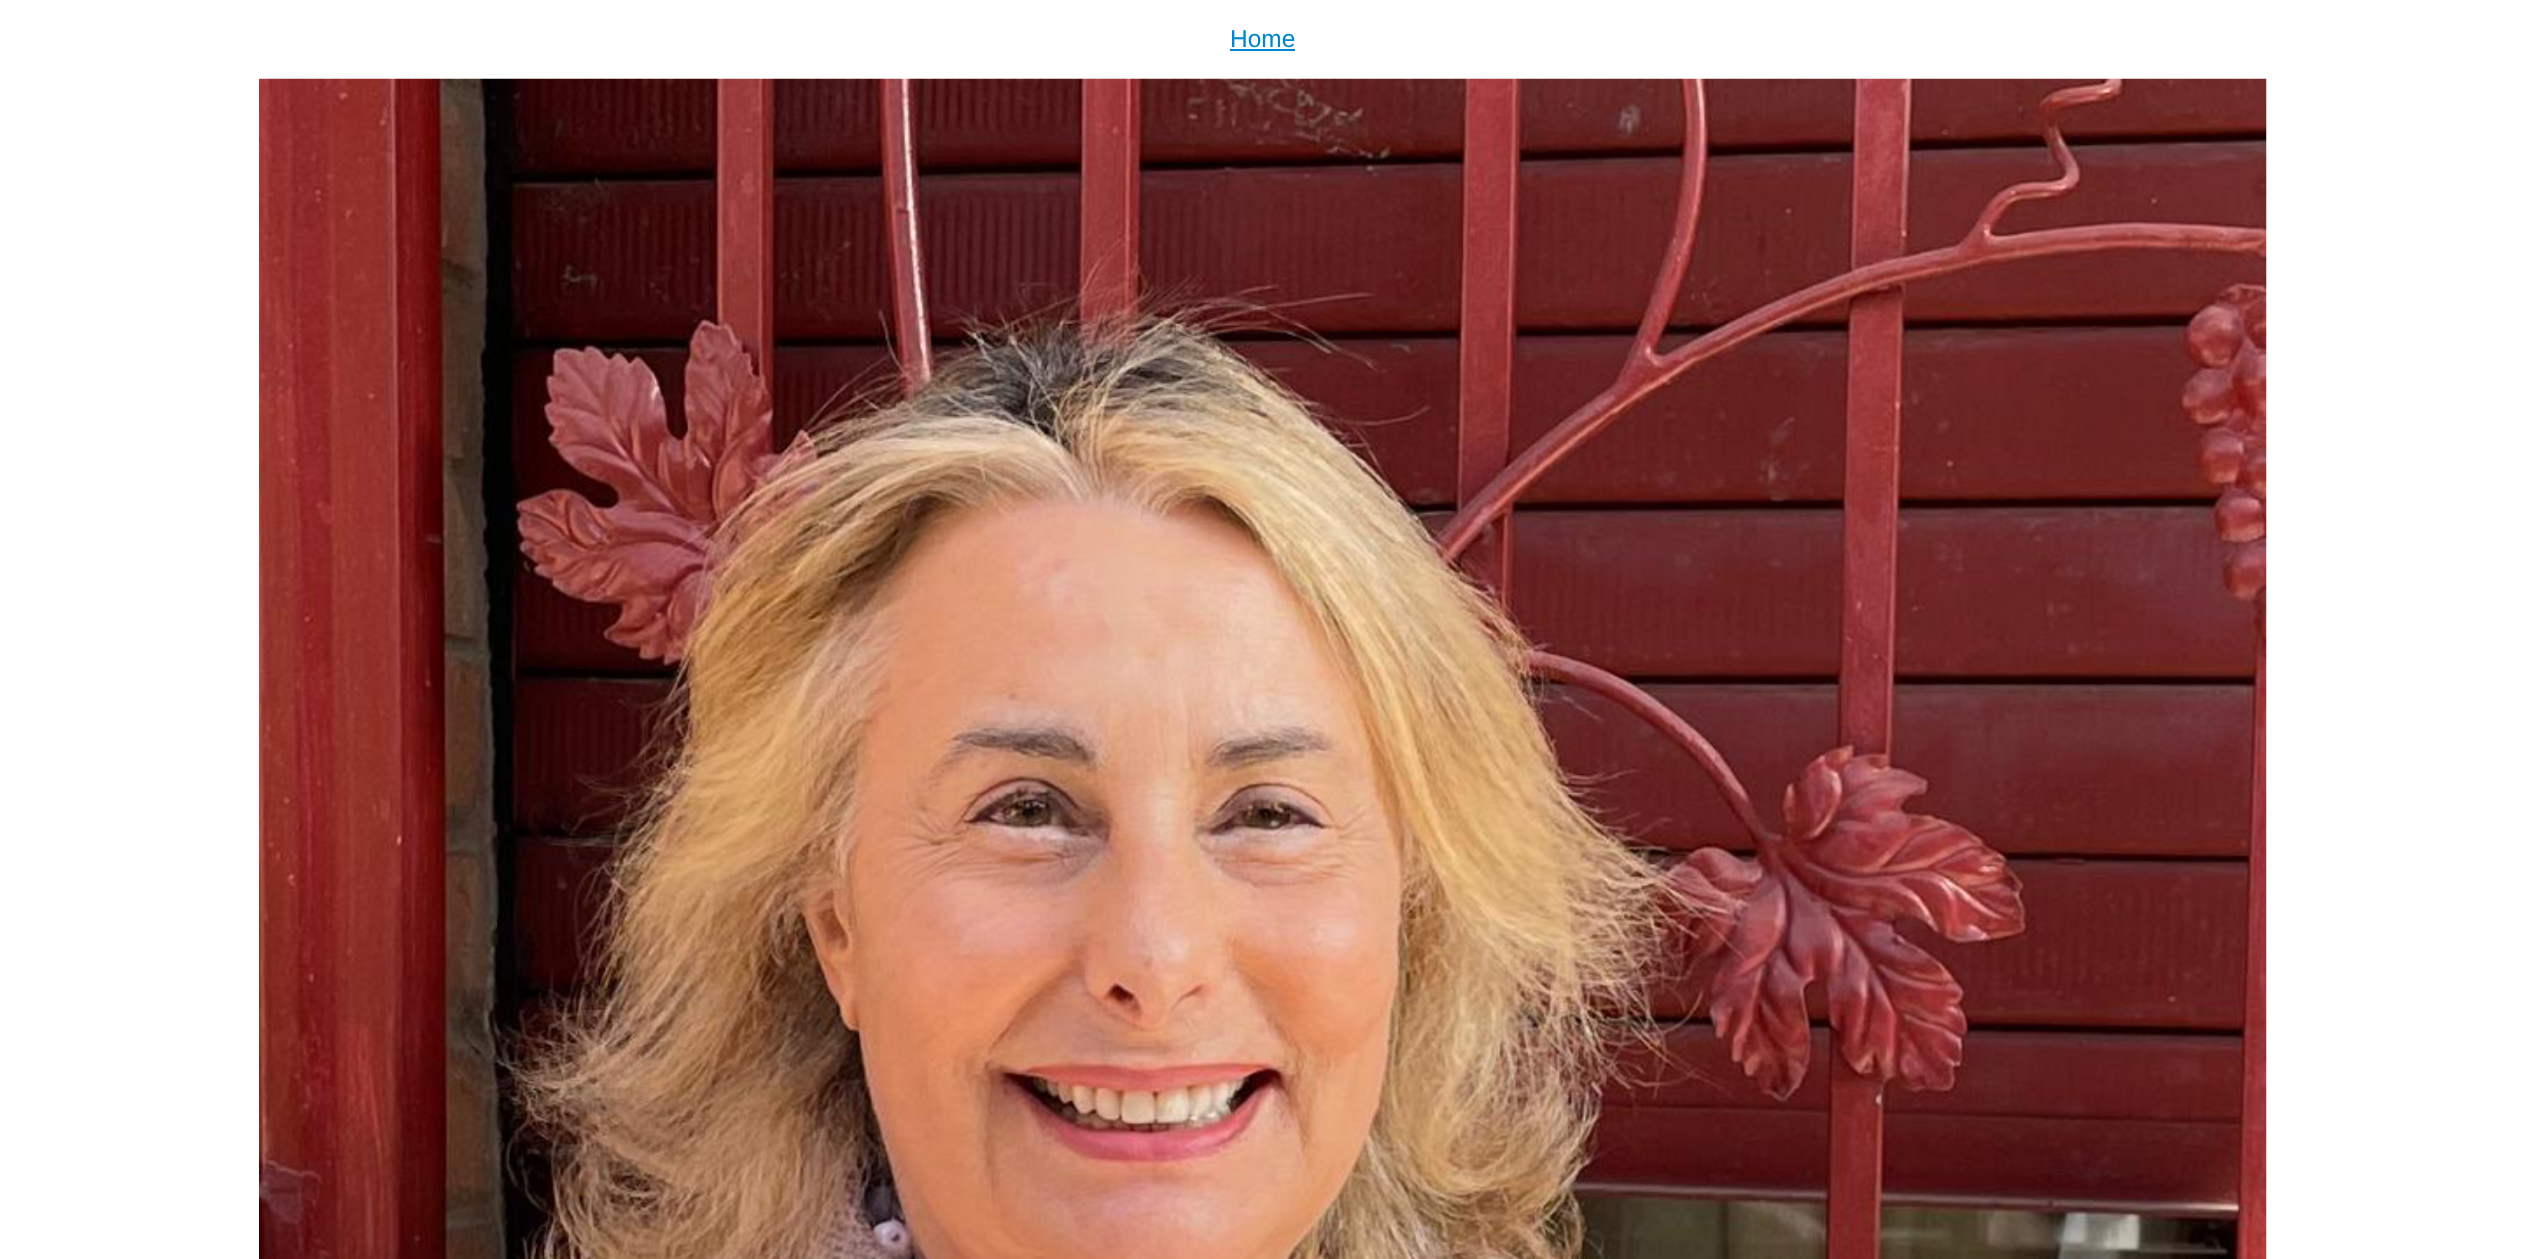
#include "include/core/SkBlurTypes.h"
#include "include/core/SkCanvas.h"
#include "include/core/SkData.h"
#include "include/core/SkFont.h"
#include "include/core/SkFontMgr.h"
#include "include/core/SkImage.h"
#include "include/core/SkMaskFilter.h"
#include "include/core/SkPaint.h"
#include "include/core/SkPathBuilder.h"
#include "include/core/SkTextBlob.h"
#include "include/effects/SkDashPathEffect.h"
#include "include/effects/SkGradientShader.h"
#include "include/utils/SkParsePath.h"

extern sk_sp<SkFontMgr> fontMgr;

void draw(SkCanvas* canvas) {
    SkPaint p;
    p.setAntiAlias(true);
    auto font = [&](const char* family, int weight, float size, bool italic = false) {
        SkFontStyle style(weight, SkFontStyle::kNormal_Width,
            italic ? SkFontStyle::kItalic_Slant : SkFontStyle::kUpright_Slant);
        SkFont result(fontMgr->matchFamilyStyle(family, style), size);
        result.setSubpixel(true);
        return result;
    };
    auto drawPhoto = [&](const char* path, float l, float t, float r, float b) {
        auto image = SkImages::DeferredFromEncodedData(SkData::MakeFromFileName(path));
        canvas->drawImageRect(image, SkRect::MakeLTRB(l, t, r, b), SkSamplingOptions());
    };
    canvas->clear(0xFFFFFFFF);
    auto font1 = font("Liberation Sans", 400, 24.5f);
    p.setColor(0xFF0088CC);
    canvas->drawString("Home", 1230, 47, font1, p);
    canvas->drawRect(SkRect::MakeLTRB(1230, 49, 1295, 51), p);
    drawPhoto("media/1.png", 259, 78, 2267, 1259);
}
